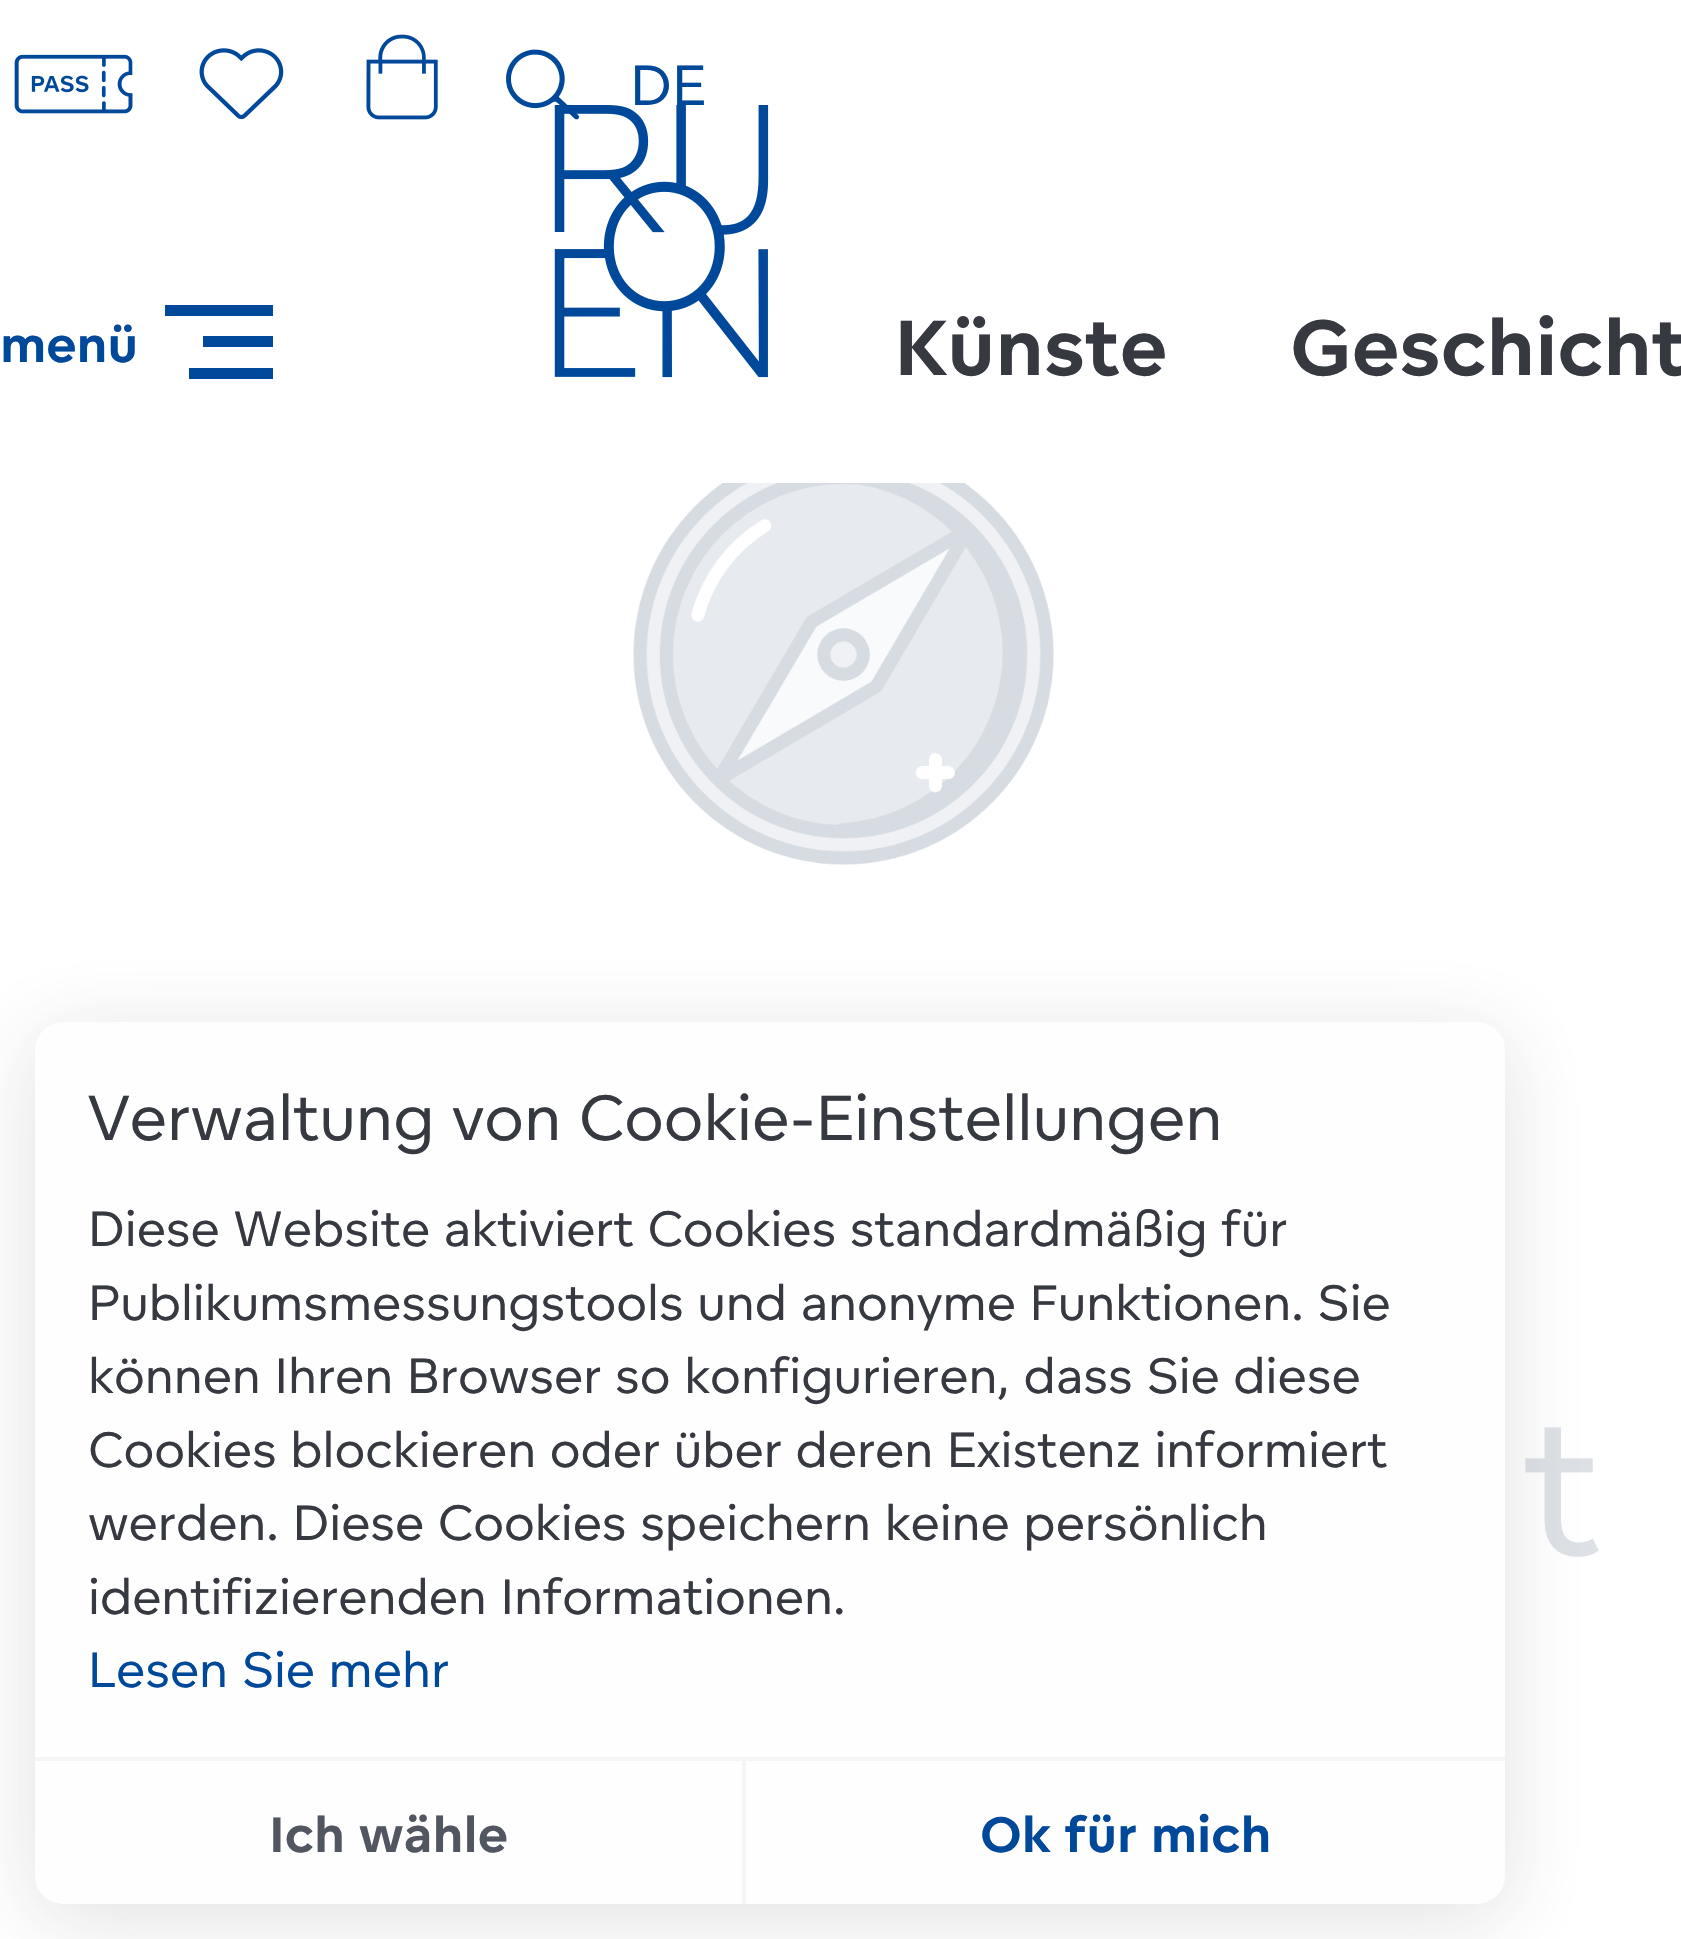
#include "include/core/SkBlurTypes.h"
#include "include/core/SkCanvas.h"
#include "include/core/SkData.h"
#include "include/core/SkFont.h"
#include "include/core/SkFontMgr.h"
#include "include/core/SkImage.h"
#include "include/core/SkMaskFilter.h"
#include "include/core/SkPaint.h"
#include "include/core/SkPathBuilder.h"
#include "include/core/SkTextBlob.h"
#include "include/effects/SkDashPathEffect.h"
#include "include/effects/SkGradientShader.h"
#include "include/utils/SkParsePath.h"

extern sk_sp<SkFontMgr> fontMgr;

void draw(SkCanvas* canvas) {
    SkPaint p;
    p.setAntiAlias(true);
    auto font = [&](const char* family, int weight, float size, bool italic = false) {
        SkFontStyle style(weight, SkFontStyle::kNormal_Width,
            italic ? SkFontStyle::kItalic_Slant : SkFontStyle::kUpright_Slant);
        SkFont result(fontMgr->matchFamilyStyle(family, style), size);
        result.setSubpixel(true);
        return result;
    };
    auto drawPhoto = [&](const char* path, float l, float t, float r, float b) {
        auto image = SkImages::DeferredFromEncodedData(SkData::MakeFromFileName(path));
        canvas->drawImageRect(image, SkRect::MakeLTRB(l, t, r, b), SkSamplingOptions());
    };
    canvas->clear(0xFFFFFFFF);
    drawPhoto("media/1.png", 14, 54, 133, 114);
    drawPhoto("media/2.png", 199, 48, 284, 120);
    drawPhoto("media/3.png", 366, 34, 438, 120);
    drawPhoto("media/4.png", 506, 49, 579, 120);
    auto font1 = font("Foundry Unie", 400, 56);
    p.setColor(0xFF004899);
    canvas->drawString("DE", 630, 105, font1, p);
    auto font2 = font("Foundry Unie", 700, 49);
    canvas->drawString("menü", 0, 362, font2, p);
    {
        const struct { float l, t, r, b; SkColor color; } items[] = {
            {165, 305, 273, 316, 0xFF004899},
            {203, 336, 273, 347, 0xFF004899},
            {189, 368, 273, 379, 0xFF004899},
        };
        for (auto [l, t, r, b, color] : items) {
            p.setColor(color);
            canvas->drawRect(SkRect::MakeLTRB(l, t, r, b), p);
        }
    }
    drawPhoto("media/5.png", 554, 105, 769, 378);
    auto font3 = font("Foundry Unie", 700, 77);
    p.setColor(0xFF373941);
    canvas->drawString("Künste", 894, 375, font3, p);
    canvas->drawString("Geschicht", 1290, 375, font3, p);
    drawPhoto("media/6.png", 633, 483, 1054, 865);
    auto font4 = font("Foundry Unie", 400, 189);
    p.setColor(0xFFDDE1E6);
    canvas->drawString("t", 1523, 1554, font4, p);
    p.setColor(0x26373941);
    p.setMaskFilter(SkMaskFilter::MakeBlur(kNormal_SkBlurStyle, 42));
    canvas->drawRoundRect(SkRect::MakeLTRB(35, 1036, 1505, 1918), 28, 28, p);
    p.setMaskFilter(nullptr);
    p.setColor(0xFFFEFEFE);
    canvas->drawRoundRect(SkRect::MakeLTRB(35, 1022, 1505, 1904), 28, 28, p);
    auto font5 = font("Foundry Unie", 400, 63);
    p.setColor(0xFF373941);
    canvas->drawString("Verwaltung von Cookie-Einstellungen", 88, 1140, font5, p);
    auto font6 = font("Foundry Unie", 400, 49);
    {
        const struct { const char* s; float x, y; } items[] = {
            {"Diese Website aktiviert Cookies standardmäßig für", 88, 1246},
            {"Publikumsmessungstools und anonyme Funktionen. Sie", 88, 1320},
            {"können Ihren Browser so konfigurieren, dass Sie diese", 88, 1393},
            {"Cookies blockieren oder über deren Existenz informiert", 88, 1467},
            {"werden. Diese Cookies speichern keine persönlich", 88, 1540},
            {"identifizierenden Informationen.", 88, 1614},
        };
        for (auto [s, x, y] : items) {
            canvas->drawString(s, x, y, font6, p);
        }
    }
    p.setColor(0xFF004899);
    canvas->drawString("Lesen Sie mehr", 88, 1687, font6, p);
    p.setColor(0xFFF5F5F5);
    canvas->drawRect(SkRect::MakeLTRB(35, 1757, 1505, 1761), p);
    canvas->drawRect(SkRect::MakeLTRB(742, 1761, 746, 1904), p);
    p.setColor(0xFF525661);
    canvas->drawString("Ich wähle", 269, 1852, font2, p);
    p.setColor(0xFF004899);
    canvas->drawString("Ok für mich", 980, 1852, font2, p);
}
